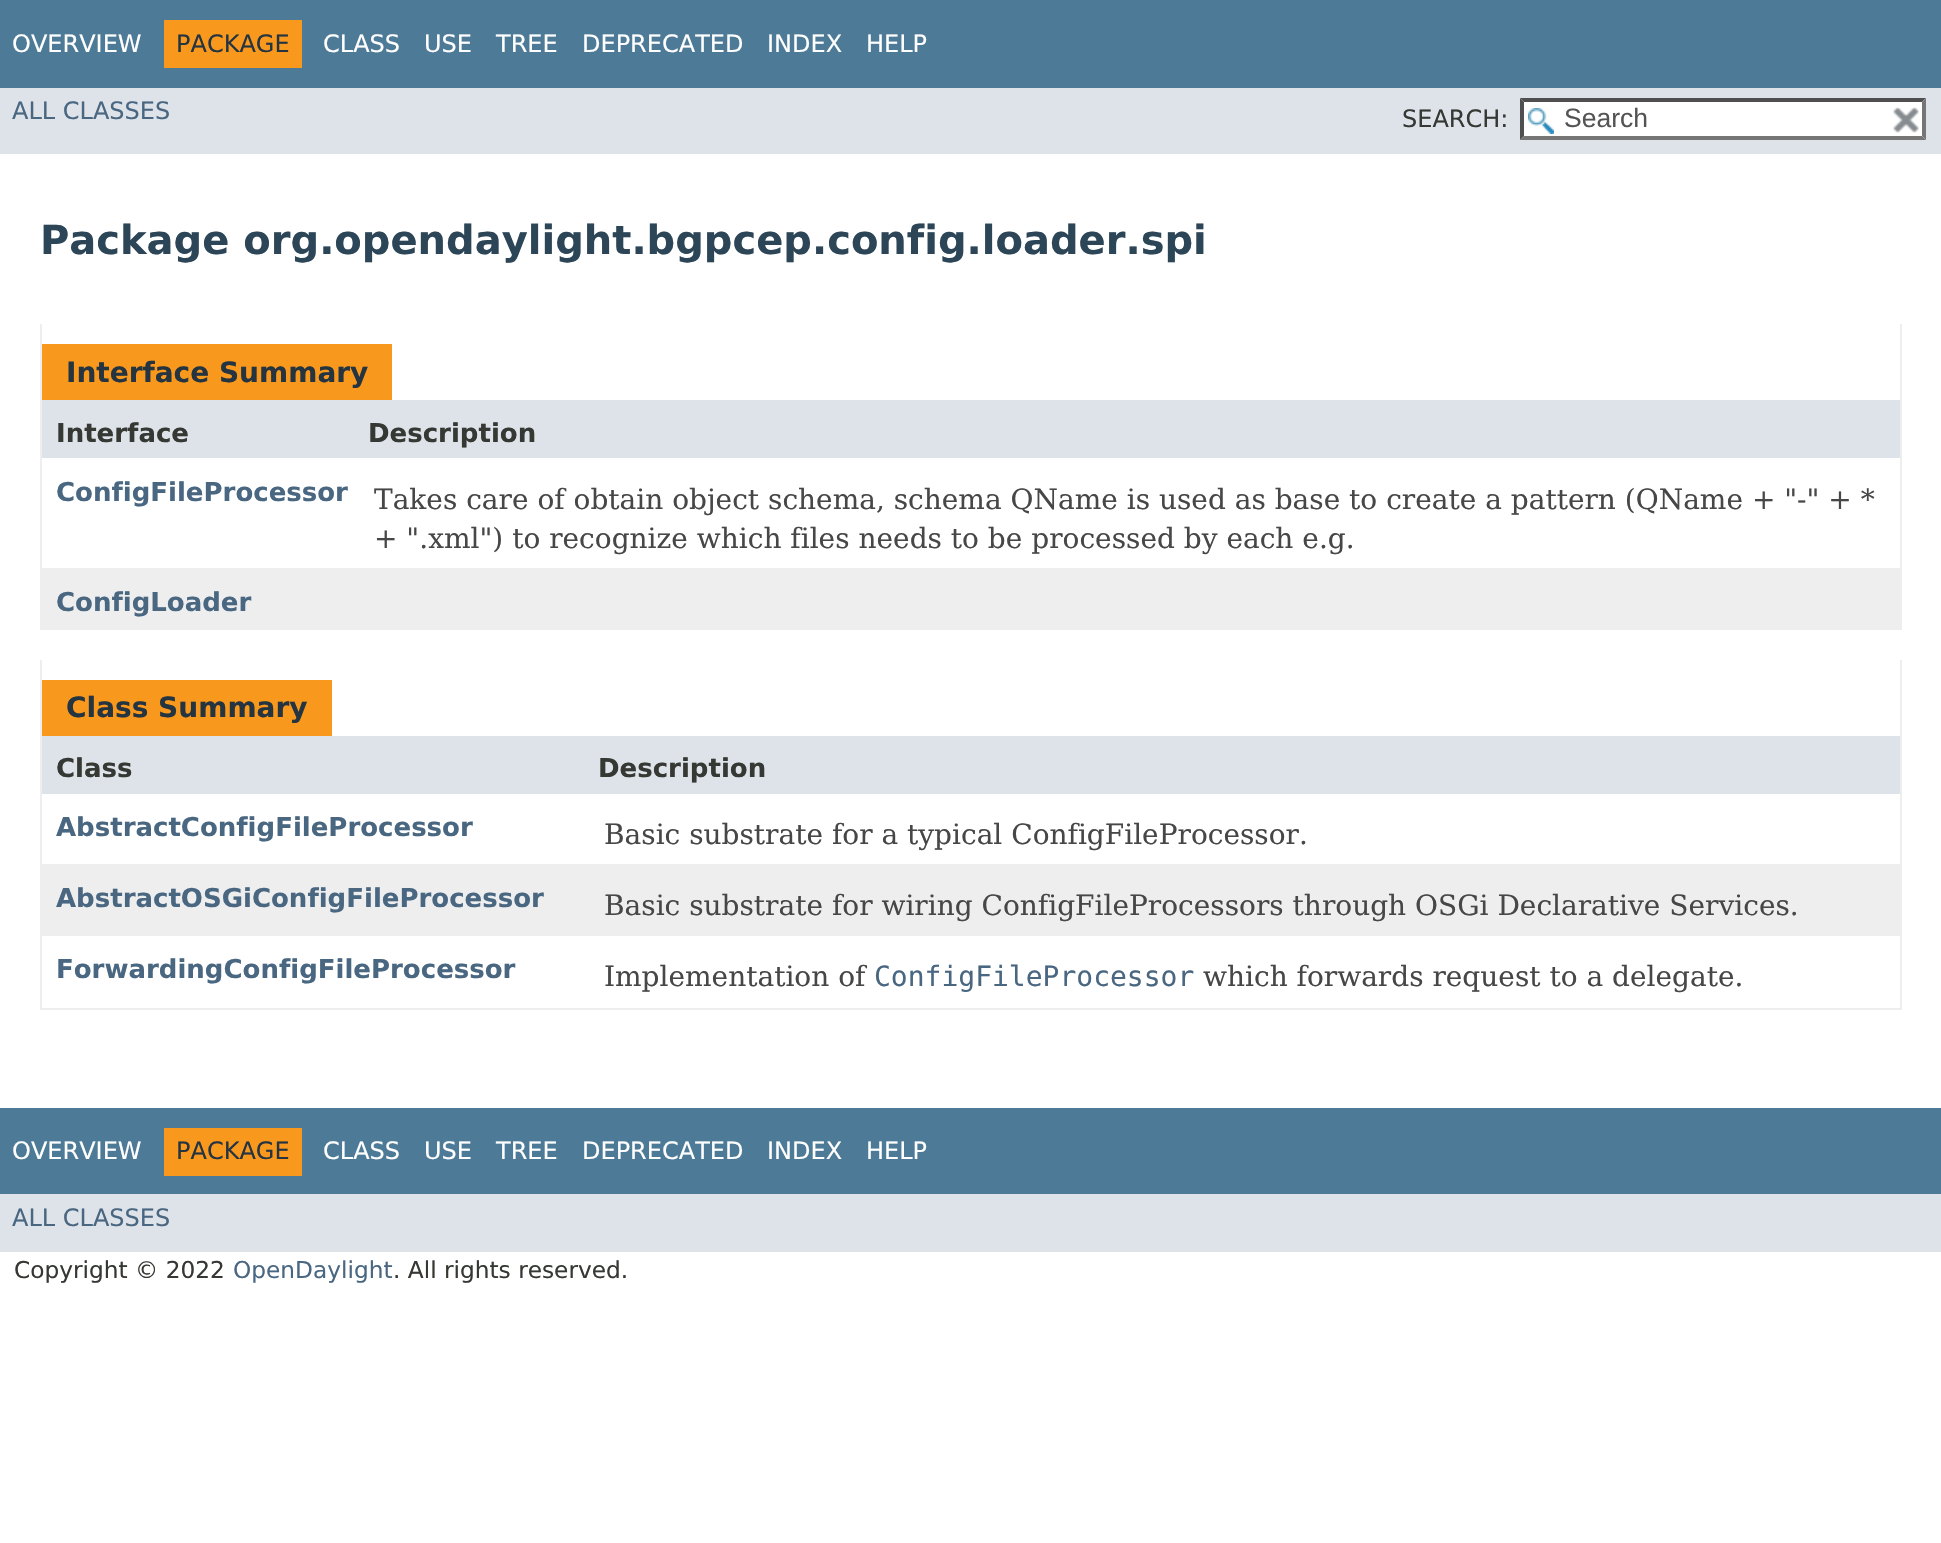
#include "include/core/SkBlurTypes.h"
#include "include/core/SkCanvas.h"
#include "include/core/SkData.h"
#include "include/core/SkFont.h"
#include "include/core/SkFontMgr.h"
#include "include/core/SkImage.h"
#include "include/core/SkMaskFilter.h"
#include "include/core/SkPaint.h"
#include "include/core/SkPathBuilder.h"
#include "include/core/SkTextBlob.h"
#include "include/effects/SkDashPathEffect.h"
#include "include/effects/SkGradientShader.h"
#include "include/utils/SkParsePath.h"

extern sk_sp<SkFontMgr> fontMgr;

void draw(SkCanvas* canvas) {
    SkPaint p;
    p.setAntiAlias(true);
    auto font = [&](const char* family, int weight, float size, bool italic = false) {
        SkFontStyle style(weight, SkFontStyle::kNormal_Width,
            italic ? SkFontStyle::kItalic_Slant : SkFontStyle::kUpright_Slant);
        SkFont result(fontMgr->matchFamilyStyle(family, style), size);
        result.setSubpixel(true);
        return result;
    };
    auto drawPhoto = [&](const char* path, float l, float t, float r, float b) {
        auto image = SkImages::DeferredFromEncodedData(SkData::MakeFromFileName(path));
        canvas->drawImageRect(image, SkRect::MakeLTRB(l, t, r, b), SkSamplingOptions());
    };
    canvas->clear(0xFFFFFFFF);
    p.setColor(0xFF4D7A97);
    canvas->drawRect(SkRect::MakeLTRB(0, 0, 1941, 88), p);
    auto font1 = font("DejaVu Sans", 400, 24);
    p.setColor(0xFFFFFFFF);
    canvas->drawString("OVERVIEW", 12, 52, font1, p);
    p.setColor(0xFFF8981D);
    canvas->drawRect(SkRect::MakeLTRB(164, 20, 302, 68), p);
    p.setColor(0xFF253441);
    canvas->drawString("PACKAGE", 176, 52, font1, p);
    p.setColor(0xFFFFFFFF);
    {
        const struct { const char* s; float x, y; } items[] = {
            {"CLASS", 323, 52},
            {"USE", 424, 52},
            {"TREE", 496, 52},
            {"DEPRECATED", 582, 52},
            {"INDEX", 767, 52},
            {"HELP", 866, 52},
        };
        for (auto [s, x, y] : items) {
            canvas->drawString(s, x, y, font1, p);
        }
    }
    p.setColor(0xFFDEE3E9);
    canvas->drawRect(SkRect::MakeLTRB(0, 88, 1941, 154), p);
    p.setColor(0xFF4A6782);
    canvas->drawString("ALL CLASSES", 12, 119, font1, p);
    p.setColor(0xFF353833);
    canvas->drawString("SEARCH:", 1402, 127, font1, p);
    p.setColor(0xFFFFFFFF);
    canvas->drawRect(SkRect::MakeLTRB(1520, 98, 1926, 140), p);
    drawPhoto("media/1.png", 1528, 108, 1554, 134);
    p.setColor(0xFF4F4F4F);
    canvas->drawPath(SkPathBuilder().moveTo(1520, 98).lineTo(1926, 98).lineTo(1922, 102).lineTo(1524, 102).close().detach(), p);
    p.setColor(0xFF767676);
    canvas->drawPath(SkPathBuilder().moveTo(1926, 98).lineTo(1926, 140).lineTo(1922, 136).lineTo(1922, 102).close().detach(), p);
    canvas->drawPath(SkPathBuilder().moveTo(1926, 140).lineTo(1520, 140).lineTo(1524, 136).lineTo(1922, 136).close().detach(), p);
    p.setColor(0xFF4F4F4F);
    canvas->drawPath(SkPathBuilder().moveTo(1520, 140).lineTo(1520, 98).lineTo(1524, 102).lineTo(1524, 136).close().detach(), p);
    auto font2 = font("Liberation Sans", 400, 26.5f);
    p.setColor(0xFF545454);
    canvas->drawString("Search", 1564, 127, font2, p);
    drawPhoto("media/2.png", 1892, 107, 1919, 133);
    auto font3 = font("DejaVu Sans", 700, 40);
    p.setColor(0xFF2C4557);
    canvas->drawString("Package org.opendaylight.bgpcep.config.loader.spi", 40, 254, font3, p);
    {
        const struct { float l, t, r, b; SkColor color; } items[] = {
            {1900, 324, 1902, 630, 0xFFEEEEEE},
            {40, 628, 1902, 630, 0xFFEEEEEE},
            {40, 324, 42, 630, 0xFFEEEEEE},
            {42, 344, 392, 400, 0xFFF8981D},
        };
        for (auto [l, t, r, b, color] : items) {
            p.setColor(color);
            canvas->drawRect(SkRect::MakeLTRB(l, t, r, b), p);
        }
    }
    auto font4 = font("DejaVu Sans", 700, 28);
    p.setColor(0xFF253441);
    canvas->drawString("Interface Summary", 66, 382, font4, p);
    p.setColor(0xFFDEE3E9);
    canvas->drawRect(SkRect::MakeLTRB(42, 400, 1900, 458), p);
    auto font5 = font("DejaVu Sans", 700, 26);
    p.setColor(0xFF353833);
    canvas->drawString("Interface", 56, 442, font5, p);
    canvas->drawString("Description", 368, 442, font5, p);
    p.setColor(0xFF4A6782);
    canvas->drawString("ConfigFileProcessor", 56, 501, font5, p);
    auto font6 = font("DejaVu Serif", 400, 28);
    p.setColor(0xFF474747);
    canvas->drawString("Takes care of obtain object schema, schema QName is used as base to create a pattern (QName + \"-\" + *", 374, 509, font6, p);
    canvas->drawString("+ \".xml\") to recognize which files needs to be processed by each e.g.", 374, 548, font6, p);
    p.setColor(0xFFEEEEEF);
    canvas->drawRect(SkRect::MakeLTRB(42, 568, 1900, 628), p);
    p.setColor(0xFF4A6782);
    canvas->drawString("ConfigLoader", 56, 611, font5, p);
    {
        const struct { float l, t, r, b; SkColor color; } items[] = {
            {1900, 660, 1902, 1010, 0xFFEEEEEE},
            {40, 1008, 1902, 1010, 0xFFEEEEEE},
            {40, 660, 42, 1010, 0xFFEEEEEE},
            {42, 680, 332, 736, 0xFFF8981D},
        };
        for (auto [l, t, r, b, color] : items) {
            p.setColor(color);
            canvas->drawRect(SkRect::MakeLTRB(l, t, r, b), p);
        }
    }
    p.setColor(0xFF253441);
    canvas->drawString("Class Summary", 66, 717, font4, p);
    p.setColor(0xFFDEE3E9);
    canvas->drawRect(SkRect::MakeLTRB(42, 736, 1900, 794), p);
    p.setColor(0xFF353833);
    canvas->drawString("Class", 56, 777, font5, p);
    canvas->drawString("Description", 598, 777, font5, p);
    p.setColor(0xFF4A6782);
    canvas->drawString("AbstractConfigFileProcessor", 56, 836, font5, p);
    p.setColor(0xFF474747);
    canvas->drawString("Basic substrate for a typical ConfigFileProcessor.", 604, 844, font6, p);
    p.setColor(0xFFEEEEEF);
    canvas->drawRect(SkRect::MakeLTRB(42, 864, 1900, 936), p);
    p.setColor(0xFF4A6782);
    canvas->drawString("AbstractOSGiConfigFileProcessor", 56, 907, font5, p);
    p.setColor(0xFF474747);
    canvas->drawString("Basic substrate for wiring ConfigFileProcessors through OSGi Declarative Services.", 604, 915, font6, p);
    p.setColor(0xFF4A6782);
    canvas->drawString("ForwardingConfigFileProcessor", 56, 978, font5, p);
    p.setColor(0xFF474747);
    canvas->drawString("Implementation of", 604, 986, font6, p);
    auto font7 = font("DejaVu Sans Mono", 400, 28);
    p.setColor(0xFF4A6782);
    canvas->drawString("ConfigFileProcessor", 874, 986, font7, p);
    p.setColor(0xFF474747);
    canvas->drawString("which forwards request to a delegate.", 1203, 986, font6, p);
    p.setColor(0xFF4D7A97);
    canvas->drawRect(SkRect::MakeLTRB(0, 1108, 1941, 1194), p);
    p.setColor(0xFFFFFFFF);
    canvas->drawString("OVERVIEW", 12, 1159, font1, p);
    p.setColor(0xFFF8981D);
    canvas->drawRect(SkRect::MakeLTRB(164, 1128, 302, 1176), p);
    p.setColor(0xFF253441);
    canvas->drawString("PACKAGE", 176, 1159, font1, p);
    p.setColor(0xFFFFFFFF);
    {
        const struct { const char* s; float x, y; } items[] = {
            {"CLASS", 323, 1159},
            {"USE", 424, 1159},
            {"TREE", 496, 1159},
            {"DEPRECATED", 582, 1159},
            {"INDEX", 767, 1159},
            {"HELP", 866, 1159},
        };
        for (auto [s, x, y] : items) {
            canvas->drawString(s, x, y, font1, p);
        }
    }
    p.setColor(0xFFDEE3E9);
    canvas->drawRect(SkRect::MakeLTRB(0, 1194, 1941, 1252), p);
    p.setColor(0xFF4A6782);
    canvas->drawString("ALL CLASSES", 12, 1226, font1, p);
    auto font8 = font("DejaVu Sans", 400, 23.25f);
    p.setColor(0xFF353833);
    canvas->drawString("Copyright © 2022", 14, 1278, font8, p);
    p.setColor(0xFF4A6782);
    canvas->drawString("OpenDaylight", 233, 1278, font8, p);
    p.setColor(0xFF353833);
    canvas->drawString(". All rights reserved.", 393, 1278, font8, p);
}
